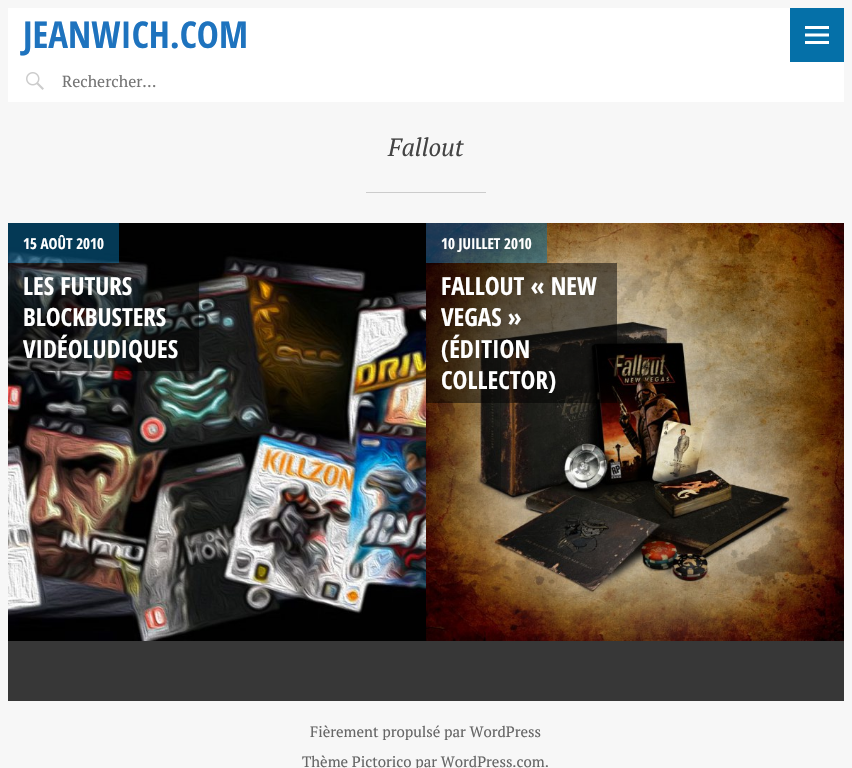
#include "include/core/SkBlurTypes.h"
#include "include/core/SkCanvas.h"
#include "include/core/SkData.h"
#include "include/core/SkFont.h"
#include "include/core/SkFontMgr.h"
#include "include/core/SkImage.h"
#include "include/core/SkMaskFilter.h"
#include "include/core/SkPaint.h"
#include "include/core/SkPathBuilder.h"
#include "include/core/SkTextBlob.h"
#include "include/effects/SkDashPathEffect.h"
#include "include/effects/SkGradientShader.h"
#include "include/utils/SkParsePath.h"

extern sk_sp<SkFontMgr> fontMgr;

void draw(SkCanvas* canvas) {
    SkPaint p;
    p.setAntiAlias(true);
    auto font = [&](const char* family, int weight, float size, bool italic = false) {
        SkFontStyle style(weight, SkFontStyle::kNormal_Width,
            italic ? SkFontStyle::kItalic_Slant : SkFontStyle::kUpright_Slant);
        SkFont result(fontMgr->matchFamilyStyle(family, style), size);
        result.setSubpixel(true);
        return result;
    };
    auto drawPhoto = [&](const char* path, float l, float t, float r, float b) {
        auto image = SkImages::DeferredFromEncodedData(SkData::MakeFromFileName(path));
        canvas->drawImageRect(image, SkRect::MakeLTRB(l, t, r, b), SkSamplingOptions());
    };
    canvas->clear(0xFFF7F7F7);
    p.setColor(0xFFFFFFFF);
    canvas->drawRect(SkRect::MakeLTRB(8, 8, 844, 102), p);
    auto font1 = font("Open Sans Condensed", 700, 37);
    p.setColor(0xFF1E73BE);
    canvas->drawString("JEANWICH.COM", 23, 48, font1, p);
    p.setColor(0xFF0570A8);
    canvas->drawRect(SkRect::MakeLTRB(790, 8, 844, 62), p);
    drawPhoto("media/1.png", 805, 26, 829, 44);
    drawPhoto("media/2.png", 26, 72, 44, 90);
    auto font2 = font("PT Serif", 400, 16);
    p.setColor(0xFF757575);
    canvas->drawString("Rechercher…", 62, 87, font2, p);
    auto font3 = font("PT Serif", 400, 25, true);
    p.setColor(0xFF444444);
    canvas->drawString("Fallout", 388, 156, font3, p);
    p.setColor(0xFFCCCCCC);
    canvas->drawRect(SkRect::MakeLTRB(366, 192, 486, 193), p);
    drawPhoto("media/3.png", 8, 223, 426, 641);
    p.setColor(0x800570A8);
    canvas->drawRect(SkRect::MakeLTRB(8, 223, 119, 263), p);
    auto font4 = font("Open Sans Condensed", 700, 15);
    p.setColor(0xFFFFFFFF);
    canvas->drawString("15 AOÛT 2010", 23, 249, font4, p);
    p.setColor(0x80000000);
    canvas->drawRect(SkRect::MakeLTRB(8, 263, 199, 371), p);
    auto font5 = font("Open Sans Condensed", 700, 25);
    p.setColor(0xFFFFFFFF);
    {
        const struct { const char* s; float x, y; } items[] = {
            {"LES FUTURS", 23, 295},
            {"BLOCKBUSTERS", 23, 326},
            {"VIDÉOLUDIQUES", 23, 358},
        };
        for (auto [s, x, y] : items) {
            canvas->drawString(s, x, y, font5, p);
        }
    }
    drawPhoto("media/4.png", 426, 223, 844, 641);
    p.setColor(0x800570A8);
    canvas->drawRect(SkRect::MakeLTRB(426, 223, 547, 263), p);
    p.setColor(0xFFFFFFFF);
    canvas->drawString("10 JUILLET 2010", 441, 249, font4, p);
    p.setColor(0x80000000);
    canvas->drawRect(SkRect::MakeLTRB(426, 263, 617, 403), p);
    p.setColor(0xFFFFFFFF);
    {
        const struct { const char* s; float x, y; } items[] = {
            {"FALLOUT « NEW", 441, 295},
            {"VEGAS »", 441, 326},
            {"(ÉDITION", 441, 358},
            {"COLLECTOR)", 441, 389},
        };
        for (auto [s, x, y] : items) {
            canvas->drawString(s, x, y, font5, p);
        }
    }
    p.setColor(0xFF373737);
    canvas->drawRect(SkRect::MakeLTRB(8, 641, 844, 701), p);
    auto font6 = font("PT Serif", 400, 15);
    p.setColor(0xFF666666);
    canvas->drawString("Fièrement propulsé par WordPress", 310, 737, font6, p);
    canvas->drawString("Thème Pictorico par WordPress.com.", 302, 767, font6, p);
}
